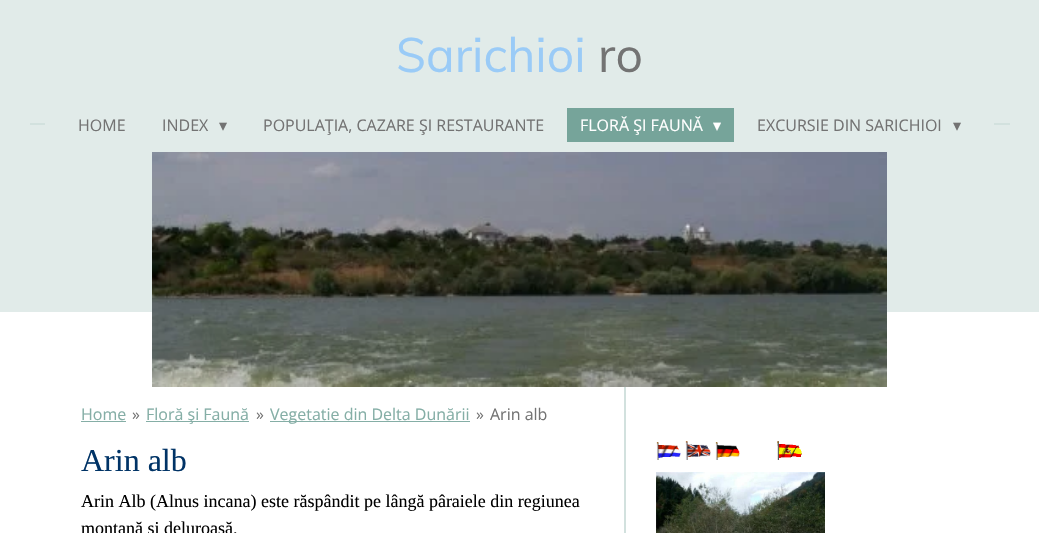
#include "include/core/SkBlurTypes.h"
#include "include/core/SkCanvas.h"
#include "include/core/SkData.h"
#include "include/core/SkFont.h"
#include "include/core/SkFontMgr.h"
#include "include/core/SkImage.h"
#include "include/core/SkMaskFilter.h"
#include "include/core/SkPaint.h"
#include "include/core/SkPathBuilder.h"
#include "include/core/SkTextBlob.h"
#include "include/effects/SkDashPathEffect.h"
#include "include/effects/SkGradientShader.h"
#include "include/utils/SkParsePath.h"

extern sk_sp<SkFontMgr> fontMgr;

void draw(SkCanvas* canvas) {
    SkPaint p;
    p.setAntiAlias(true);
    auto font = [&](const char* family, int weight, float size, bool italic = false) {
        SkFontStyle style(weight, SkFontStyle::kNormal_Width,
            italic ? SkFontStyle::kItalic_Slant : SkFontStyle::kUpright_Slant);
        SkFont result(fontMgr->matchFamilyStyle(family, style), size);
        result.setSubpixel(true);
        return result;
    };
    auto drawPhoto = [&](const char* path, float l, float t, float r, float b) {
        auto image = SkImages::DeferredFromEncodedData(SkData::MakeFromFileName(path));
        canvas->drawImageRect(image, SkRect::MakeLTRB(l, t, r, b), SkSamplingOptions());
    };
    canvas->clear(0xFFFFFFFF);
    p.setColor(0xFFE1EBE9);
    canvas->drawRect(SkRect::MakeLTRB(0, 0, 1039, 312), p);
    auto font1 = font("Muli", 400, 48);
    p.setColor(0xFF9ACBF7);
    canvas->drawString("Sarichioi", 396, 72, font1, p);
    p.setColor(0xFF737373);
    canvas->drawString("ro", 598, 72, font1, p);
    p.setColor(0xFFD2E1DE);
    canvas->drawRect(SkRect::MakeLTRB(30, 123, 45, 125), p);
    auto font2 = font("Open Sans", 400, 16);
    p.setColor(0xFF737373);
    canvas->drawString("HOME", 78, 131, font2, p);
    canvas->drawString("INDEX", 162, 131, font2, p);
    auto font3 = font("DejaVu Sans", 400, 16);
    canvas->drawString("▾", 219, 131, font3, p);
    canvas->drawString("POPULAŢIA, CAZARE ŞI RESTAURANTE", 263, 131, font2, p);
    p.setColor(0xFF76A49A);
    canvas->drawRect(SkRect::MakeLTRB(567, 108, 734, 142), p);
    p.setColor(0xFFFFFFFF);
    canvas->drawString("FLORĂ ŞI FAUNĂ", 580, 131, font2, p);
    canvas->drawString("▾", 713, 131, font3, p);
    p.setColor(0xFF737373);
    canvas->drawString("EXCURSIE DIN SARICHIOI", 757, 131, font2, p);
    canvas->drawString("▾", 953, 131, font3, p);
    p.setColor(0xFFD2E1DE);
    canvas->drawRect(SkRect::MakeLTRB(994, 123, 1010, 125), p);
    drawPhoto("media/1.png", 152, 152, 887, 387);
    p.setColor(0xFF85AEA6);
    canvas->drawString("Home", 81, 420, font2, p);
    canvas->drawRect(SkRect::MakeLTRB(81, 421, 126, 422), p);
    p.setColor(0xFF737373);
    canvas->drawString("»", 132, 420, font2, p);
    p.setColor(0xFF85AEA6);
    canvas->drawRect(SkRect::MakeLTRB(146, 421, 249, 422), p);
    canvas->drawString("Floră şi Faună", 146, 420, font2, p);
    p.setColor(0xFF737373);
    canvas->drawString("»", 256, 420, font2, p);
    p.setColor(0xFF85AEA6);
    canvas->drawRect(SkRect::MakeLTRB(270, 421, 470, 422), p);
    canvas->drawString("Vegetatie din Delta Dunării", 270, 420, font2, p);
    p.setColor(0xFF737373);
    canvas->drawString("»", 476, 420, font2, p);
    canvas->drawString("Arin alb", 490, 420, font2, p);
    auto font4 = font("Liberation Serif", 400, 32);
    p.setColor(0xFF003366);
    canvas->drawString("Arin alb", 81, 471, font4, p);
    auto font5 = font("Liberation Serif", 400, 18);
    p.setColor(0xFF000000);
    canvas->drawString("Arin Alb (Alnus incana) este răspândit pe lângă pâraiele din regiunea", 81, 507, font5, p);
    canvas->drawString("montană şi deluroasă.", 81, 534, font5, p);
    p.setColor(0xFFD2E1DE);
    canvas->drawRect(SkRect::MakeLTRB(624, 387, 626, 533), p);
    drawPhoto("media/2.png", 656, 442, 681, 460);
    drawPhoto("media/3.png", 685, 441, 711, 460);
    drawPhoto("media/4.png", 715, 442, 740, 460);
    drawPhoto("media/5.png", 777, 441, 802, 460);
    drawPhoto("media/6.png", 656, 472, 825, 533);
}
